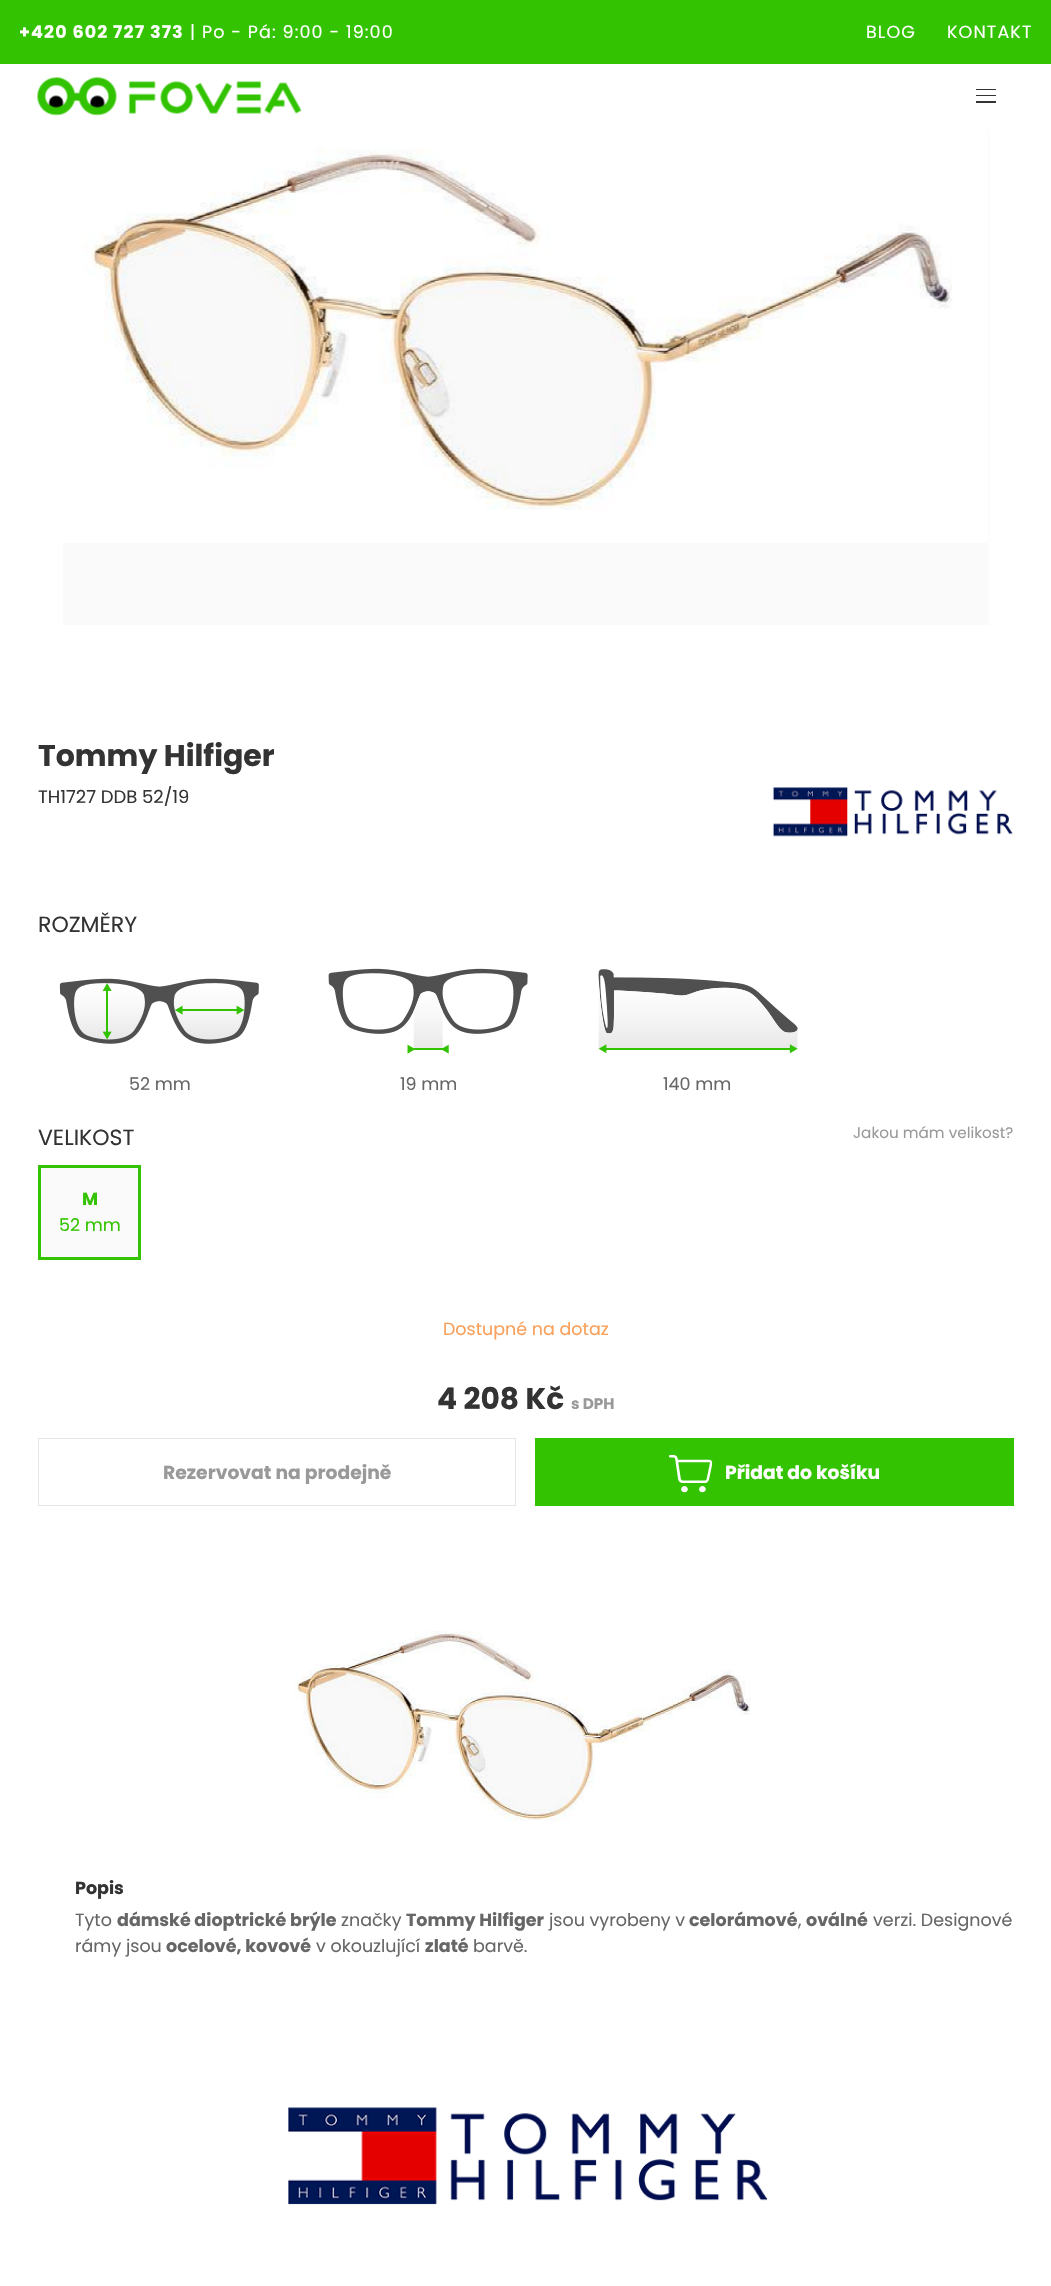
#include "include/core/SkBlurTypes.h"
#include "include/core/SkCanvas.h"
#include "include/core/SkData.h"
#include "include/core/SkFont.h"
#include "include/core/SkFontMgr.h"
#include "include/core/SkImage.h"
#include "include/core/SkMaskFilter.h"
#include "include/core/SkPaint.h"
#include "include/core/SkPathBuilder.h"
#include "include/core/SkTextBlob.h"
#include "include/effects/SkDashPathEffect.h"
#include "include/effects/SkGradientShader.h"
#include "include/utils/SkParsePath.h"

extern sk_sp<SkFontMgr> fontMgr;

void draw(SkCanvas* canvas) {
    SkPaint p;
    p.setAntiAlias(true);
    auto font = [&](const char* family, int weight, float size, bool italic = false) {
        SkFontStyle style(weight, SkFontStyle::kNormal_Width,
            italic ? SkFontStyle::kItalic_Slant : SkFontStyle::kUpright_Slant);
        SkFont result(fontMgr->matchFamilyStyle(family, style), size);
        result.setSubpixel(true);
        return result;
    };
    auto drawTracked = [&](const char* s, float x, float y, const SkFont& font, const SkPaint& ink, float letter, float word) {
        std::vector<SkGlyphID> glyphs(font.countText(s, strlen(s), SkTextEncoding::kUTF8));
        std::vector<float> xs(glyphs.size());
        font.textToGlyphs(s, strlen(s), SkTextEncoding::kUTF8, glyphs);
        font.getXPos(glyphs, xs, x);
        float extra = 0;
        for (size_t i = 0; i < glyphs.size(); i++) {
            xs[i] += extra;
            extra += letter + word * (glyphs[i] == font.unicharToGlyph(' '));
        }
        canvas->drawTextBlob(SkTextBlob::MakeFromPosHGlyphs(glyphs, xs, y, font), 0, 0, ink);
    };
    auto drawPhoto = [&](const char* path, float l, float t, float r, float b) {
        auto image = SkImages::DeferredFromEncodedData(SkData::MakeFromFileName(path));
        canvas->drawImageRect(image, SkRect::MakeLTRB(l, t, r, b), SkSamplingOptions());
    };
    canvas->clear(0xFFFFFFFF);
    p.setColor(0xFF33C300);
    canvas->drawRect(SkRect::MakeLTRB(0, 0, 1051, 64), p);
    auto font1 = font("Poppins", 700, 17.5f);
    p.setColor(0xFFFFFFFF);
    drawTracked("+420 602 727 373", 19, 38, font1, p, 1.1f, 0);
    auto font2 = font("Poppins", 400, 17.5f);
    {
        const struct { const char* s; float x, y; } items[] = {
            {"| Po - Pá: 9:00 - 19:00", 190, 38},
            {"BLOG", 866, 38},
            {"KONTAKT", 947, 38},
        };
        for (auto [s, x, y] : items) {
            drawTracked(s, x, y, font2, p, 1.1f, 0);
        }
    }
    drawPhoto("media/1.png", 37, 77, 302, 116);
    {
        const struct { float l, t, r, b; SkColor color; } items[] = {
            {976, 89, 996, 90, 0xFF333333},
            {976, 95, 996, 96, 0xFF333333},
            {976, 101, 996, 103, 0xFF333333},
            {63, 129, 989, 625, 0xFFFAFAFA},
        };
        for (auto [l, t, r, b, color] : items) {
            p.setColor(color);
            canvas->drawRect(SkRect::MakeLTRB(l, t, r, b), p);
        }
    }
    drawPhoto("media/2.png", 63, 129, 988, 543);
    auto font3 = font("Poppins", 700, 30);
    p.setColor(0xFF333333);
    canvas->drawString("Tommy Hilfiger", 38, 766, font3, p);
    auto font4 = font("Poppins", 400, 18);
    canvas->drawString("TH1727 DDB 52/19", 38, 803, font4, p);
    drawPhoto("media/3.png", 772, 787, 1013, 837);
    auto font5 = font("Poppins", 400, 22);
    canvas->drawString("ROZMĚRY", 38, 932, font5, p);
    drawPhoto("media/4.png", 59, 978, 259, 1044);
    p.setColor(0xFF666666);
    canvas->drawString("52 mm", 129, 1090, font2, p);
    drawPhoto("media/5.png", 328, 968, 528, 1054);
    canvas->drawString("19 mm", 400, 1090, font2, p);
    drawPhoto("media/6.png", 598, 969, 798, 1054);
    canvas->drawString("140 mm", 663, 1090, font2, p);
    p.setColor(0xFF333333);
    canvas->drawString("VELIKOST", 38, 1145, font5, p);
    auto font6 = font("Poppins", 400, 15.25f);
    p.setColor(0xFF999999);
    canvas->drawString("Jakou mám velikost?", 853, 1138, font6, p);
    p.setColor(0xFFFAFAFA);
    canvas->drawRect(SkRect::MakeLTRB(39.5f, 1166.5f, 139.5f, 1258.5f), p);
    p.setStyle(SkPaint::kStroke_Style);
    p.setStrokeWidth(3);
    p.setColor(0xFF33C300);
    canvas->drawRect(SkRect::MakeLTRB(39.5f, 1166.5f, 139.5f, 1258.5f), p);
    p.setStyle(SkPaint::kFill_Style);
    canvas->drawString("M", 82, 1205, font1, p);
    canvas->drawString("52 mm", 59, 1231, font2, p);
    p.setColor(0xFFFAA05A);
    canvas->drawString("Dostupné na dotaz", 443, 1335, font2, p);
    auto font7 = font("Poppins", 700, 29.75f);
    p.setColor(0xFF333333);
    canvas->drawString("4 208 Kč", 437, 1409, font7, p);
    auto font8 = font("Poppins", 700, 15.25f);
    p.setColor(0xFF999999);
    canvas->drawString("s DPH", 571, 1409, font8, p);
    p.setStyle(SkPaint::kStroke_Style);
    p.setStrokeWidth(1);
    p.setColor(0xFFE5E5E5);
    canvas->drawRect(SkRect::MakeLTRB(38.5f, 1438.5f, 515.5f, 1505.5f), p);
    auto font9 = font("Poppins", 700, 18.75f);
    p.setStyle(SkPaint::kFill_Style);
    p.setColor(0xFF999999);
    canvas->drawString("Rezervovat na prodejně", 163, 1479, font9, p);
    p.setColor(0xFF33C300);
    canvas->drawRect(SkRect::MakeLTRB(535, 1438, 1014, 1506), p);
    drawPhoto("media/7.png", 669, 1455, 713, 1493);
    p.setColor(0xFFFFFFFF);
    canvas->drawString("Přidat do košíku", 725, 1479, font9, p);
    drawPhoto("media/8.png", 293, 1631, 751, 1821);
    p.setColor(0xFF333333);
    canvas->drawString("Popis", 75, 1894, font1, p);
    p.setColor(0xFF666666);
    canvas->drawString("Tyto", 75, 1926, font2, p);
    canvas->drawString("dámské dioptrické brýle", 117, 1926, font1, p);
    canvas->drawString("značky", 341, 1926, font2, p);
    canvas->drawString("Tommy Hilfiger", 406, 1926, font1, p);
    canvas->drawString("jsou vyrobeny v", 549, 1926, font2, p);
    canvas->drawString("celorámové", 689, 1926, font1, p);
    canvas->drawString(",", 798, 1926, font2, p);
    canvas->drawString("oválné", 806, 1926, font1, p);
    canvas->drawString("verzi. Designové", 873, 1926, font2, p);
    canvas->drawString("rámy jsou", 75, 1952, font2, p);
    canvas->drawString("ocelové, kovové", 166, 1952, font1, p);
    canvas->drawString("v okouzlující", 316, 1952, font2, p);
    canvas->drawString("zlaté", 425, 1952, font1, p);
    canvas->drawString("barvě.", 473, 1952, font2, p);
    drawPhoto("media/9.png", 288, 2107, 768, 2205);
}
